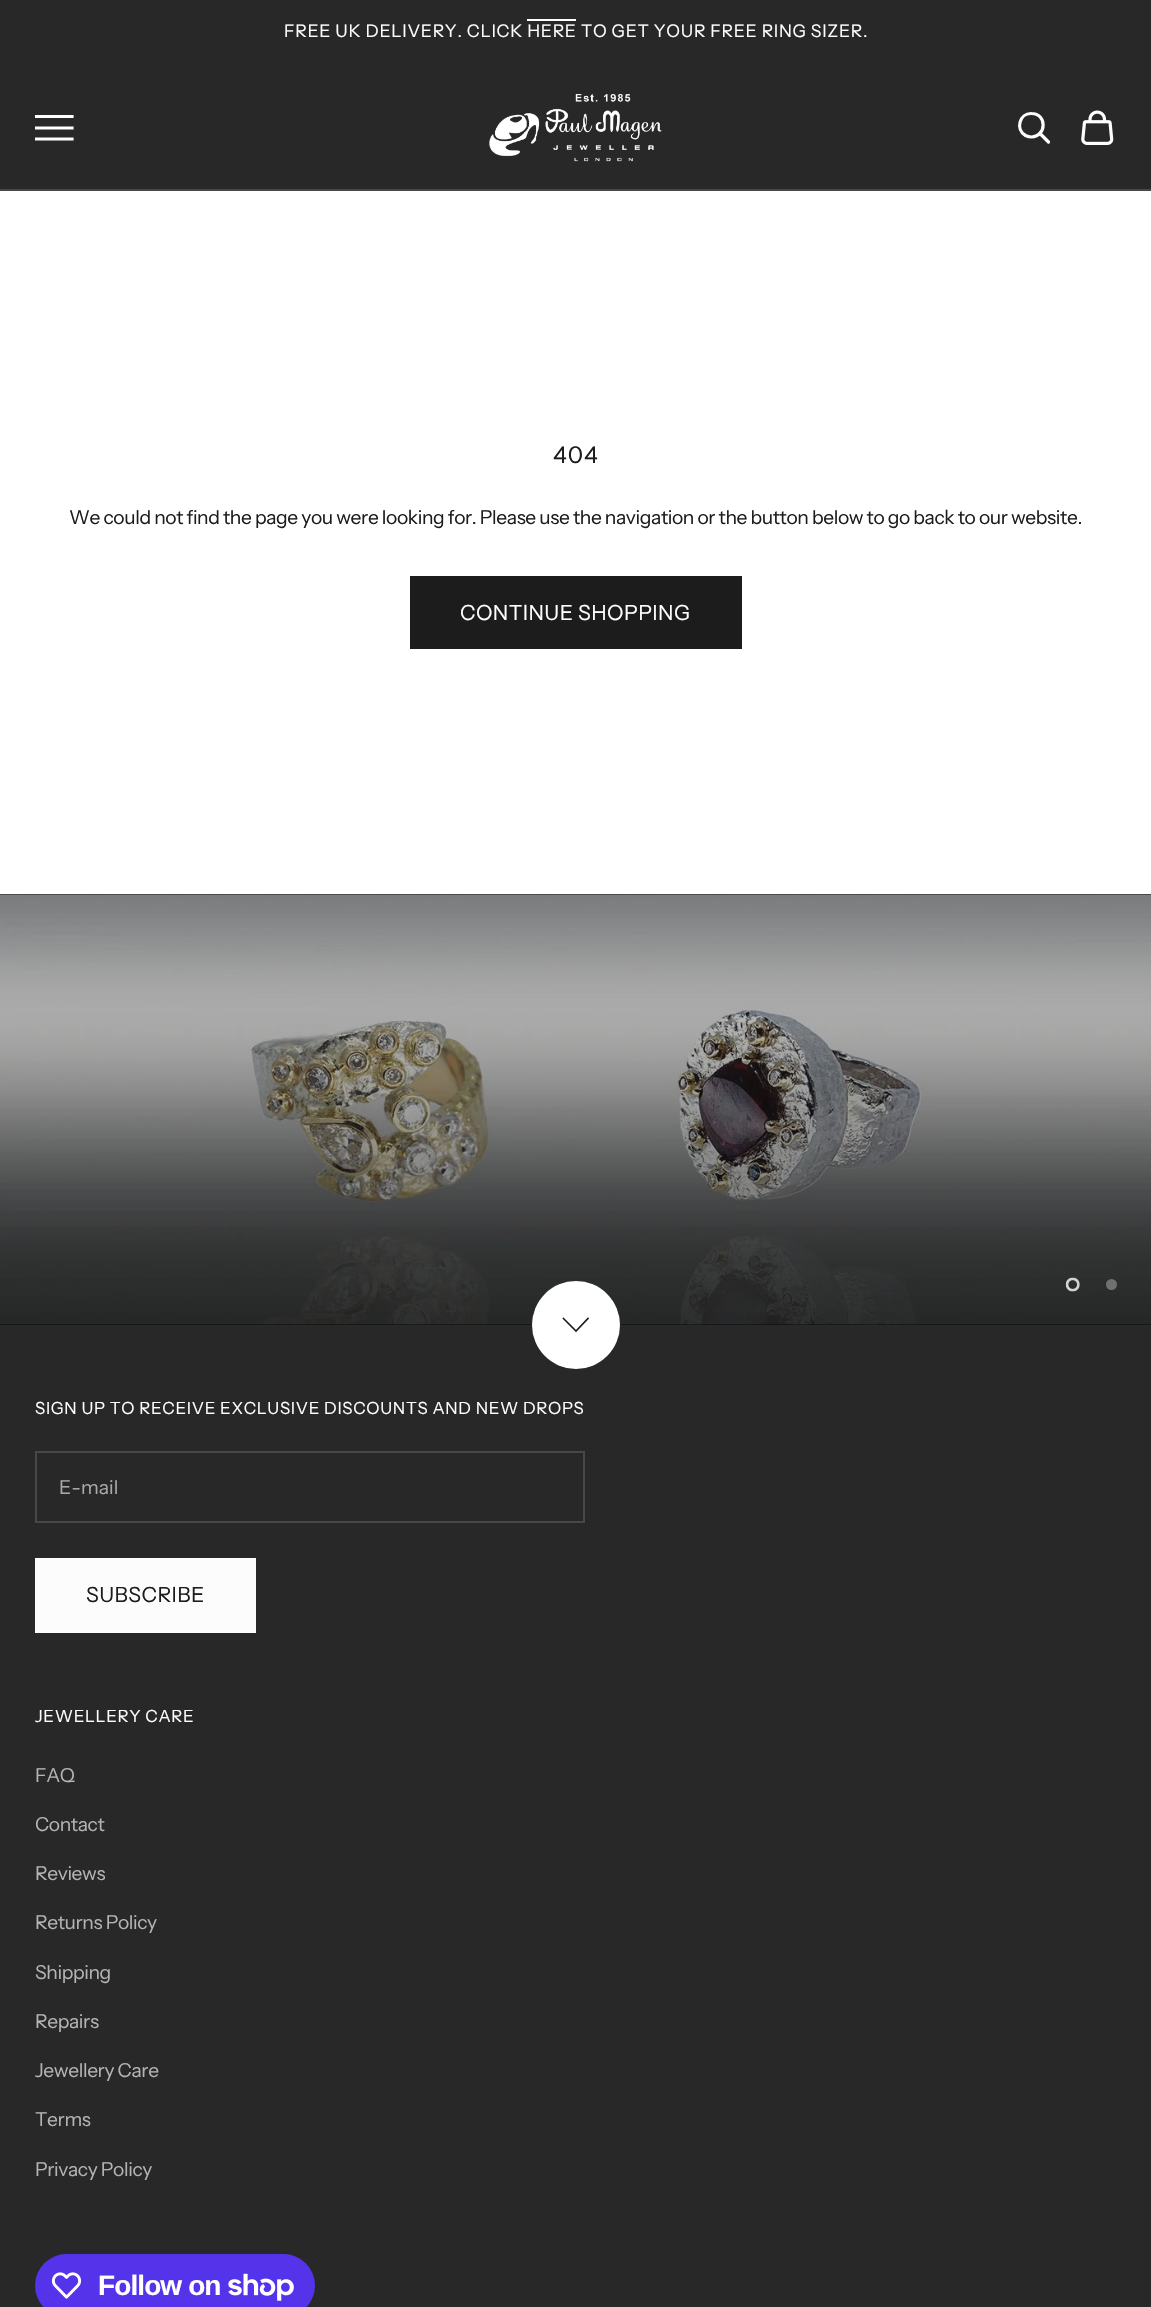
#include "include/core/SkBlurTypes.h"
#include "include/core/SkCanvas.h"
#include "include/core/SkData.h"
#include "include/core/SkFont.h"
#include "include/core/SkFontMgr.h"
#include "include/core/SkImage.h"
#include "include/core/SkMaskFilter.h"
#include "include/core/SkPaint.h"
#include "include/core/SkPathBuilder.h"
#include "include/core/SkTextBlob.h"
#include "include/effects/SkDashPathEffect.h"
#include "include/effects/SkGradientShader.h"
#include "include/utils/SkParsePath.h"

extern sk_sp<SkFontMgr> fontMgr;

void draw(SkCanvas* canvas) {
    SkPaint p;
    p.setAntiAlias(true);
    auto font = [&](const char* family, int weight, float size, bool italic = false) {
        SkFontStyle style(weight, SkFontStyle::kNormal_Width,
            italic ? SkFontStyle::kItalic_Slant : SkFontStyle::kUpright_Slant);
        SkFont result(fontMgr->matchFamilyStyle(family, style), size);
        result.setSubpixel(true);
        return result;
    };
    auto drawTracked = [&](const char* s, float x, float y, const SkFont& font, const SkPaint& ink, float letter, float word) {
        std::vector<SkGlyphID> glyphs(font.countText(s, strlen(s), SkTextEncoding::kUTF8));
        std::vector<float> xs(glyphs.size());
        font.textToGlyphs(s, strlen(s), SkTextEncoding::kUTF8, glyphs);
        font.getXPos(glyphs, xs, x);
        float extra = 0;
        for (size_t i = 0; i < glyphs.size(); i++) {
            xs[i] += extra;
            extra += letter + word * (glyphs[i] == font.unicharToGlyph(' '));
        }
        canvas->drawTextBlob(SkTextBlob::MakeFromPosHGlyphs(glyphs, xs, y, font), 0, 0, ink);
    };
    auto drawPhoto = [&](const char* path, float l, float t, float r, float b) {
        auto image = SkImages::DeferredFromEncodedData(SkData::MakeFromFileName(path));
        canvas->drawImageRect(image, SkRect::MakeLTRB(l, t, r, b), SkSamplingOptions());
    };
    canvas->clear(0xFFFFFFFF);
    p.setColor(0xFF282828);
    canvas->drawRect(SkRect::MakeLTRB(0, 0, 1151, 189), p);
    p.setColor(0xFFFFFFFF);
    canvas->drawRect(SkRect::MakeLTRB(527, 19, 576, 21), p);
    auto font1 = font("Instrument Sans", 400, 17.5f);
    drawTracked("FREE UK DELIVERY. CLICK HERE TO GET YOUR FREE RING SIZER.", 284, 37, font1, p, 0.7f, 0);
    p.setColor(0xFF484848);
    canvas->drawRect(SkRect::MakeLTRB(0, 189, 1151, 191), p);
    canvas->save();
    canvas->clipRect(SkRect::MakeLTRB(35, 109, 74, 147));
    p.setStyle(SkPaint::kStroke_Style);
    p.setStrokeWidth(3.2f);
    p.setStrokeCap(SkPaint::kSquare_Cap);
    p.setColor(0xFFFFFFFF);
    canvas->drawPath(SkPathBuilder().moveTo(36.5f, 139).lineTo(72, 139).moveTo(36.5f, 128).lineTo(72, 128).moveTo(36.5f, 116.5f).lineTo(72, 116.5f).detach(), p);
    canvas->restore();
    drawPhoto("media/1.png", 489, 94, 662, 162);
    p.setStrokeCap(SkPaint::kButt_Cap);
    canvas->drawPath(SkPathBuilder().moveTo(1031.5f, 113.5f).cubicTo(1019.5f, 113, 1015, 129.5f, 1025.5f, 135.5f).cubicTo(1027.5f, 136.5f, 1029.5f, 137, 1031.5f, 137).cubicTo(1047, 136, 1047, 113.5f, 1031.5f, 113.5f).close().detach(), p);
    p.setStrokeCap(SkPaint::kRound_Cap);
    canvas->drawPath(SkPathBuilder().moveTo(1040.5f, 134).lineTo(1048.5f, 142).detach(), p);
    drawPhoto("media/2.png", 1081, 110, 1114, 145);
    auto font2 = font("Instrument Sans", 400, 23);
    p.setStyle(SkPaint::kFill_Style);
    p.setColor(0xFF1C1C1C);
    drawTracked("404", 553, 463, font2, p, 1, 0);
    auto font3 = font("Instrument Sans", 400, 19.25f);
    drawTracked("We could not find the page you were looking for. Please use the navigation or the button below to go back to our website.", 69, 524, font3, p, -0.39f, 0);
    canvas->drawRect(SkRect::MakeLTRB(411, 577, 741, 648), p);
    p.setStyle(SkPaint::kStroke_Style);
    p.setStrokeWidth(2);
    p.setStrokeCap(SkPaint::kButt_Cap);
    canvas->drawRect(SkRect::MakeLTRB(411, 577, 741, 648), p);
    auto font4 = font("Instrument Sans", 400, 21);
    p.setStyle(SkPaint::kFill_Style);
    p.setColor(0xFFFFFFFF);
    drawTracked("CONTINUE SHOPPING", 460, 620, font4, p, 0.4f, 0);
    p.setColor(0xFF000000);
    canvas->drawRect(SkRect::MakeLTRB(0, 894, 1151, 1325), p);
    drawPhoto("media/3.png", 0, 894, 1151, 1325);
    {
        const SkColor colors[] = {0x33363636, 0xA6040404};
        const float stops[] = {0, 1};
        const SkPoint ends[] = {{576, 894}, {576, 1325}};
        p.setShader(SkGradientShader::MakeLinear(ends, colors, stops, 2, SkTileMode::kClamp));
        p.setAlpha(255);
    }
    canvas->drawRect(SkRect::MakeLTRB(0, 894, 1151, 1325), p);
    p.setShader(nullptr);
    p.setColor(0xFF282828);
    canvas->drawRect(SkRect::MakeLTRB(0, 1325, 1151, 2307), p);
    p.setColor(0xFFFFFFFF);
    canvas->drawCircle(576, 1325, 44, p);
    p.setStyle(SkPaint::kStroke_Style);
    p.setStrokeWidth(1.6f);
    p.setStrokeCap(SkPaint::kSquare_Cap);
    p.setColor(0xFF1C1C1C);
    canvas->drawPath(SkPathBuilder().moveTo(563.5f, 1318.5f).lineTo(576, 1331).lineTo(588, 1318.5f).detach(), p);
    drawPhoto("media/4.png", 1065, 1277, 1080, 1292);
    p.setStyle(SkPaint::kFill_Style);
    p.setColor(0xFF6F7070);
    canvas->drawCircle(1111.5f, 1284.5f, 5.5f, p);
    auto font5 = font("Instrument Sans", 400, 16.8f);
    p.setColor(0xFFFFFFFF);
    drawTracked("SIGN UP TO RECEIVE EXCLUSIVE DISCOUNTS AND NEW DROPS", 35, 1414, font5, p, 0.67f, 0);
    p.setStyle(SkPaint::kStroke_Style);
    p.setStrokeWidth(2);
    p.setStrokeCap(SkPaint::kButt_Cap);
    p.setColor(0xFF484848);
    canvas->drawRect(SkRect::MakeLTRB(36, 1452, 584, 1522), p);
    p.setStyle(SkPaint::kFill_Style);
    p.setColor(0xFFA9A9A9);
    canvas->drawString("E-mail", 59, 1494, font3, p);
    p.setColor(0xFFFCFCFC);
    canvas->drawRect(SkRect::MakeLTRB(36, 1559, 255, 1632), p);
    p.setStyle(SkPaint::kStroke_Style);
    canvas->drawRect(SkRect::MakeLTRB(36, 1559, 255, 1632), p);
    p.setStyle(SkPaint::kFill_Style);
    p.setColor(0xFF1C1C1C);
    drawTracked("SUBSCRIBE", 86, 1602, font4, p, 0.4f, 0);
    p.setColor(0xFFFFFFFF);
    drawTracked("JEWELLERY CARE", 35, 1722, font5, p, 0.67f, 0);
    p.setColor(0xFFB4B4B4);
    {
        const struct { const char* s; float x, y; } items[] = {
            {"FAQ", 35, 1782},
            {"Contact", 35, 1831},
            {"Reviews", 35, 1880},
            {"Returns Policy", 35, 1929},
            {"Shipping", 35, 1979},
            {"Repairs", 35, 2028},
            {"Jewellery Care", 35, 2077},
            {"Terms", 35, 2126},
            {"Privacy Policy", 35, 2176},
        };
        for (auto [s, x, y] : items) {
            drawTracked(s, x, y, font3, p, -0.39f, 0);
        }
    }
    p.setColor(0xFF5433EB);
    canvas->drawRoundRect(SkRect::MakeLTRB(35, 2254, 315, 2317), 31.5f, 31.5f, p);
    drawPhoto("media/5.png", 51, 2272, 82, 2299);
    auto font6 = font("Liberation Sans", 700, 28);
    p.setColor(0xFFFFFFFF);
    drawTracked("Follow on", 98, 2295, font6, p, -0.9f, 0);
    drawPhoto("media/6.png", 228, 2273, 294, 2301);
}
